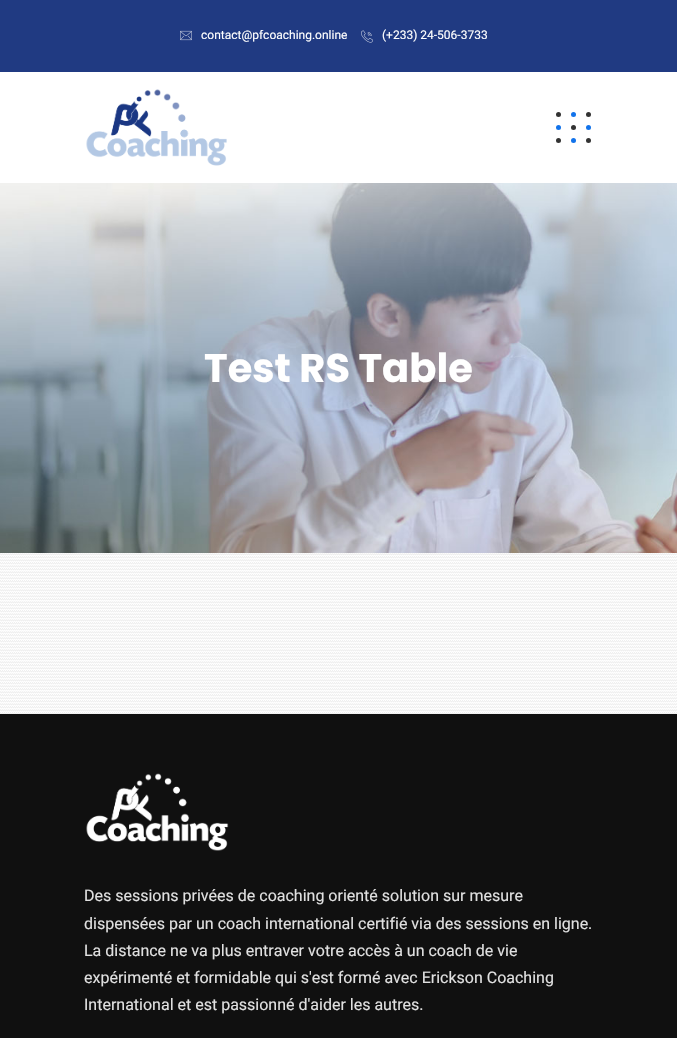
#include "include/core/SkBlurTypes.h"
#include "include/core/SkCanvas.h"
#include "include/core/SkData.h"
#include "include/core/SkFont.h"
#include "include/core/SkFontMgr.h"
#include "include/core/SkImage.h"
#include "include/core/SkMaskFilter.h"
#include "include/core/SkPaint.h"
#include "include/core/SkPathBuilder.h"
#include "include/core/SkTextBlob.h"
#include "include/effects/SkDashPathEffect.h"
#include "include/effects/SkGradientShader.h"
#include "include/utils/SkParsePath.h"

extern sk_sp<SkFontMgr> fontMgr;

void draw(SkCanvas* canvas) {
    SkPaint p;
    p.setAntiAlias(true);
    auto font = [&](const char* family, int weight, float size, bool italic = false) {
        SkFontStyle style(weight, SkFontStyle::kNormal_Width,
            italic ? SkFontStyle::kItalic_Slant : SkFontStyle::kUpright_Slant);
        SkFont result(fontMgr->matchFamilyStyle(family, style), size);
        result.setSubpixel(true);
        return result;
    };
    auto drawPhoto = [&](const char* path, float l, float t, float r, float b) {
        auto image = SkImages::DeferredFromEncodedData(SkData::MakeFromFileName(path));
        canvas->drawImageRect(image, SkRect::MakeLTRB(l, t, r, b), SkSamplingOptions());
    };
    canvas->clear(0xFFFFFFFF);
    drawPhoto("media/1.png", 0, 553, 677, 714);
    p.setColor(0xFF203A82);
    canvas->drawRect(SkRect::MakeLTRB(0, 0, 677, 72), p);
    drawPhoto("media/2.png", 180, 30, 192, 41);
    auto font1 = font("Roboto", 400, 12);
    p.setColor(0xFFFFFFFF);
    canvas->drawString("contact@pfcoaching.online", 201, 39, font1, p);
    drawPhoto("media/3.png", 361, 30, 373, 43);
    canvas->drawString("(+233) 24-506-3733", 382, 39, font1, p);
    drawPhoto("media/4.png", 86, 89, 227, 166);
    p.setColor(0xFF333333);
    canvas->drawCircle(558.5f, 114.5f, 2.5f, p);
    p.setColor(0xFF1273EB);
    canvas->drawCircle(573.5f, 114.5f, 2.5f, p);
    p.setColor(0xFF333333);
    canvas->drawCircle(588.5f, 114.5f, 2.5f, p);
    p.setColor(0xFF1273EB);
    canvas->drawCircle(558.5f, 127.5f, 2.5f, p);
    p.setColor(0xFF333333);
    canvas->drawCircle(573.5f, 127.5f, 2.5f, p);
    p.setColor(0xFF1273EB);
    canvas->drawCircle(588.5f, 127.5f, 2.5f, p);
    p.setColor(0xFF333333);
    canvas->drawCircle(558.5f, 140.5f, 2.5f, p);
    p.setColor(0xFF1273EB);
    canvas->drawCircle(573.5f, 140.5f, 2.5f, p);
    p.setColor(0xFF333333);
    canvas->drawCircle(588.5f, 140.5f, 2.5f, p);
    drawPhoto("media/5.png", 0, 183, 677, 553);
    auto font2 = font("Poppins", 700, 40);
    p.setColor(0xFFFFFFFF);
    canvas->drawString("Test RS Table", 204, 382, font2, p);
    p.setColor(0xFF101010);
    canvas->drawRect(SkRect::MakeLTRB(0, 714, 677, 1038), p);
    drawPhoto("media/6.png", 86, 773, 229, 851);
    auto font3 = font("Roboto", 400, 16);
    p.setColor(0xFFE0E0E0);
    {
        const struct { const char* s; float x, y; } items[] = {
            {"Des sessions privées de coaching orienté solution sur mesure", 84, 901},
            {"dispensées par un coach international certifié via des sessions en ligne.", 84, 929},
            {"La distance ne va plus entraver votre accès à un coach de vie", 84, 956},
            {"expérimenté et formidable qui s'est formé avec Erickson Coaching", 84, 983},
            {"International et est passionné d'aider les autres.", 84, 1010},
        };
        for (auto [s, x, y] : items) {
            canvas->drawString(s, x, y, font3, p);
        }
    }
}
